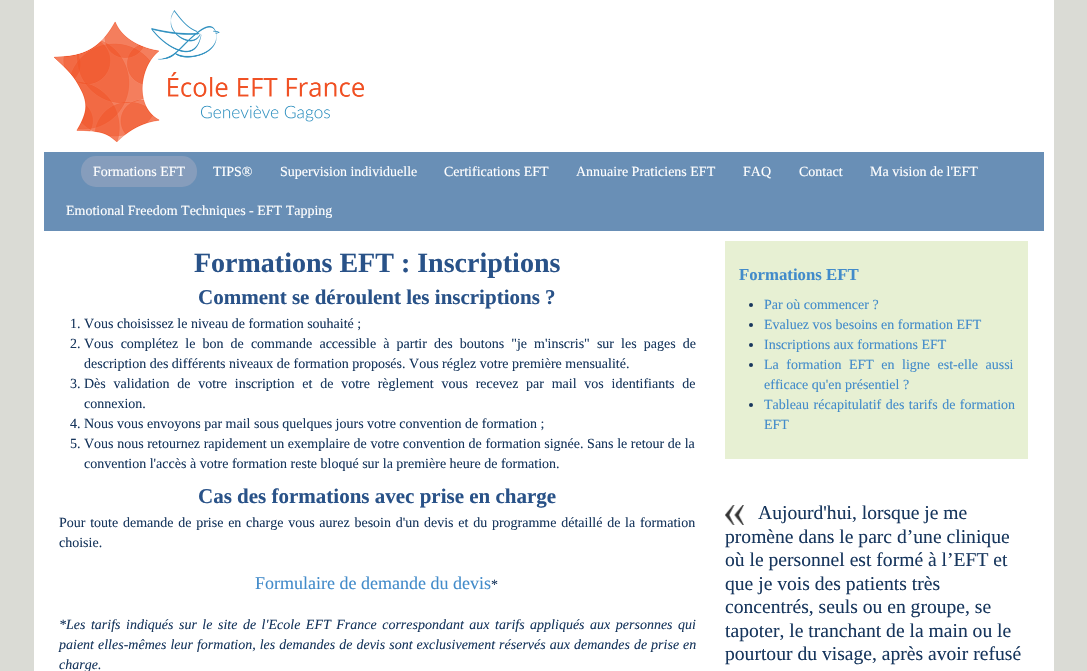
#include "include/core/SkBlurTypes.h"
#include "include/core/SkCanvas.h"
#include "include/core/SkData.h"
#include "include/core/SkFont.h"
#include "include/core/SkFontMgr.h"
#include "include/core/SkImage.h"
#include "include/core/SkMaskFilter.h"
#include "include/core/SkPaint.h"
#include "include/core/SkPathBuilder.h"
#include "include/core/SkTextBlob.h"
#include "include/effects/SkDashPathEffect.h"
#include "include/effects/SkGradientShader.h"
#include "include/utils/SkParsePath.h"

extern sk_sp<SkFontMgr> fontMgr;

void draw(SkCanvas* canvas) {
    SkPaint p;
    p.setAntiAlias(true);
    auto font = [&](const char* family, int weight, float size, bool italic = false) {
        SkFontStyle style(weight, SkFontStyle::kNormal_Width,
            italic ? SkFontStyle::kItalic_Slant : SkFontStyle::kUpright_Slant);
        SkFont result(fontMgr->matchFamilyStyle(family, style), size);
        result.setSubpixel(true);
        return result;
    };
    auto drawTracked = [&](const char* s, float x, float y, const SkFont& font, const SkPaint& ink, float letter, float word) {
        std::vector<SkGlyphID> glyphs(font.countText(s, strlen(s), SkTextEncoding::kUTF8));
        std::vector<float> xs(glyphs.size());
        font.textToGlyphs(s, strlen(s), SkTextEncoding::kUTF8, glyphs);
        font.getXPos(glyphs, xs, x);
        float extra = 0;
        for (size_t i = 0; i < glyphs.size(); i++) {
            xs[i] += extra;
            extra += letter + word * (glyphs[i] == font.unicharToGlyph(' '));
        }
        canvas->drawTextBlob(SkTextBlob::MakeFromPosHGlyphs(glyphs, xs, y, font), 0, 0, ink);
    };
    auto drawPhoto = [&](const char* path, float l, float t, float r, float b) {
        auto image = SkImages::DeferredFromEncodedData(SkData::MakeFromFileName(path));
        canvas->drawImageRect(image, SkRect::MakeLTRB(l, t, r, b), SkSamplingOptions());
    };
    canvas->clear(0xFFDADBD5);
    p.setColor(0xFFFFFFFF);
    canvas->drawRect(SkRect::MakeLTRB(34, 0, 1054, 671), p);
    drawPhoto("media/1.png", 54, 10, 364, 142);
    p.setColor(0xFF698FB6);
    canvas->drawRect(SkRect::MakeLTRB(44, 152, 1044, 231), p);
    p.setColor(0xFF869DBC);
    canvas->drawRoundRect(SkRect::MakeLTRB(81, 156, 197, 187), 15, 15, p);
    auto font1 = font("Liberation Serif", 400, 14);
    p.setColor(0xFFFFFFFF);
    {
        const struct { const char* s; float x, y; } items[] = {
            {"Formations EFT", 93, 176},
            {"TIPS®", 213, 176},
            {"Supervision individuelle", 280, 176},
            {"Certifications EFT", 444, 176},
            {"Annuaire Praticiens EFT", 576, 176},
            {"FAQ", 743, 176},
            {"Contact", 799, 176},
            {"Ma vision de l'EFT", 870, 176},
            {"Emotional Freedom Techniques - EFT Tapping", 66, 215},
        };
        for (auto [s, x, y] : items) {
            canvas->drawString(s, x, y, font1, p);
        }
    }
    auto font2 = font("Liberation Serif", 700, 28);
    p.setColor(0xFF295288);
    canvas->drawString("Formations EFT : Inscriptions", 194, 272, font2, p);
    auto font3 = font("Liberation Serif", 700, 21);
    canvas->drawString("Comment se déroulent les inscriptions ?", 198, 304, font3, p);
    p.setColor(0xFF17365D);
    canvas->drawString("1. Vous choisissez le niveau de formation souhaité ;", 70, 328, font1, p);
    canvas->drawString("2.", 70, 348, font1, p);
    drawTracked("Vous complétez le bon de commande accessible à partir des boutons \"je m'inscris\" sur les pages de", 84, 348, font1, p, 0, 3.6f);
    canvas->drawString("description des différents niveaux de formation proposés. Vous réglez votre première mensualité.", 84, 368, font1, p);
    canvas->drawString("3.", 70, 388, font1, p);
    drawTracked("Dès validation de votre inscription et de votre règlement vous recevez par mail vos identifiants de", 84, 388, font1, p, 0, 4.25f);
    {
        const struct { const char* s; float x, y; } items[] = {
            {"connexion.", 84, 408},
            {"4. Nous vous envoyons par mail sous quelques jours votre convention de formation ;", 70, 428},
            {"5.", 70, 448},
        };
        for (auto [s, x, y] : items) {
            canvas->drawString(s, x, y, font1, p);
        }
    }
    drawTracked("Vous nous retournez rapidement un exemplaire de votre convention de formation signée. Sans le retour de la", 84, 448, font1, p, 0, 0.1f);
    canvas->drawString("convention l'accès à votre formation reste bloqué sur la première heure de formation.", 84, 468, font1, p);
    p.setColor(0xFF295288);
    canvas->drawString("Cas des formations avec prise en charge", 198, 503, font3, p);
    p.setColor(0xFF17365D);
    drawTracked("Pour toute demande de prise en charge vous aurez besoin d'un devis et du programme détaillé de la formation", 59, 527, font1, p, 0, 1.25f);
    canvas->drawString("choisie.", 59, 547, font1, p);
    auto font4 = font("Liberation Serif", 400, 18);
    p.setColor(0xFF428BCA);
    canvas->drawString("Formulaire de demande du devis", 255, 589, font4, p);
    p.setColor(0xFF17365D);
    canvas->drawString("*", 491, 589, font1, p);
    auto font5 = font("Liberation Serif", 400, 14, true);
    drawTracked("*Les tarifs indiqués sur le site de l'Ecole EFT France correspondant aux tarifs appliqués aux personnes qui", 59, 629, font5, p, 0, 2);
    drawTracked("paient elles-mêmes leur formation, les demandes de devis sont exclusivement réservés aux demandes de prise en", 59, 649, font5, p, 0, 0.5f);
    canvas->drawString("charge.", 59, 669, font5, p);
    p.setColor(0xFFE7F0D3);
    canvas->drawRect(SkRect::MakeLTRB(725, 241, 1028, 459), p);
    auto font6 = font("Liberation Serif", 700, 16.75f);
    p.setColor(0xFF428BCA);
    canvas->drawString("Formations EFT", 739, 280, font6, p);
    p.setColor(0xFF17365D);
    canvas->drawCircle(751, 305, 2, p);
    p.setColor(0xFF428BCA);
    canvas->drawString("Par où commencer ?", 764, 309, font1, p);
    p.setColor(0xFF17365D);
    canvas->drawCircle(751, 325, 2, p);
    p.setColor(0xFF428BCA);
    canvas->drawString("Evaluez vos besoins en formation EFT", 764, 329, font1, p);
    p.setColor(0xFF17365D);
    canvas->drawCircle(751, 345, 2, p);
    p.setColor(0xFF428BCA);
    canvas->drawString("Inscriptions aux formations EFT", 764, 349, font1, p);
    p.setColor(0xFF17365D);
    canvas->drawCircle(751, 365, 2, p);
    p.setColor(0xFF428BCA);
    drawTracked("La formation EFT en ligne est-elle aussi", 764, 369, font1, p, 0, 4);
    canvas->drawString("efficace qu'en présentiel ?", 764, 389, font1, p);
    p.setColor(0xFF17365D);
    canvas->drawCircle(751, 405, 2, p);
    p.setColor(0xFF428BCA);
    drawTracked("Tableau récapitulatif des tarifs de formation", 764, 409, font1, p, 0, 1);
    canvas->drawString("EFT", 764, 429, font1, p);
    drawPhoto("media/2.png", 725, 505, 744, 525);
    auto font7 = font("Liberation Serif", 400, 19.6f);
    p.setColor(0xFF17365D);
    {
        const struct { const char* s; float x, y; } items[] = {
            {"Aujourd'hui, lorsque je me", 758, 519},
            {"promène dans le parc d’une clinique", 725, 543},
            {"où le personnel est formé à l’EFT et", 725, 566},
            {"que je vois des patients très", 725, 590},
            {"concentrés, seuls ou en groupe, se", 725, 613},
            {"tapoter, le tranchant de la main ou le", 725, 637},
            {"pourtour du visage, après avoir refusé", 725, 660},
        };
        for (auto [s, x, y] : items) {
            canvas->drawString(s, x, y, font7, p);
        }
    }
}
